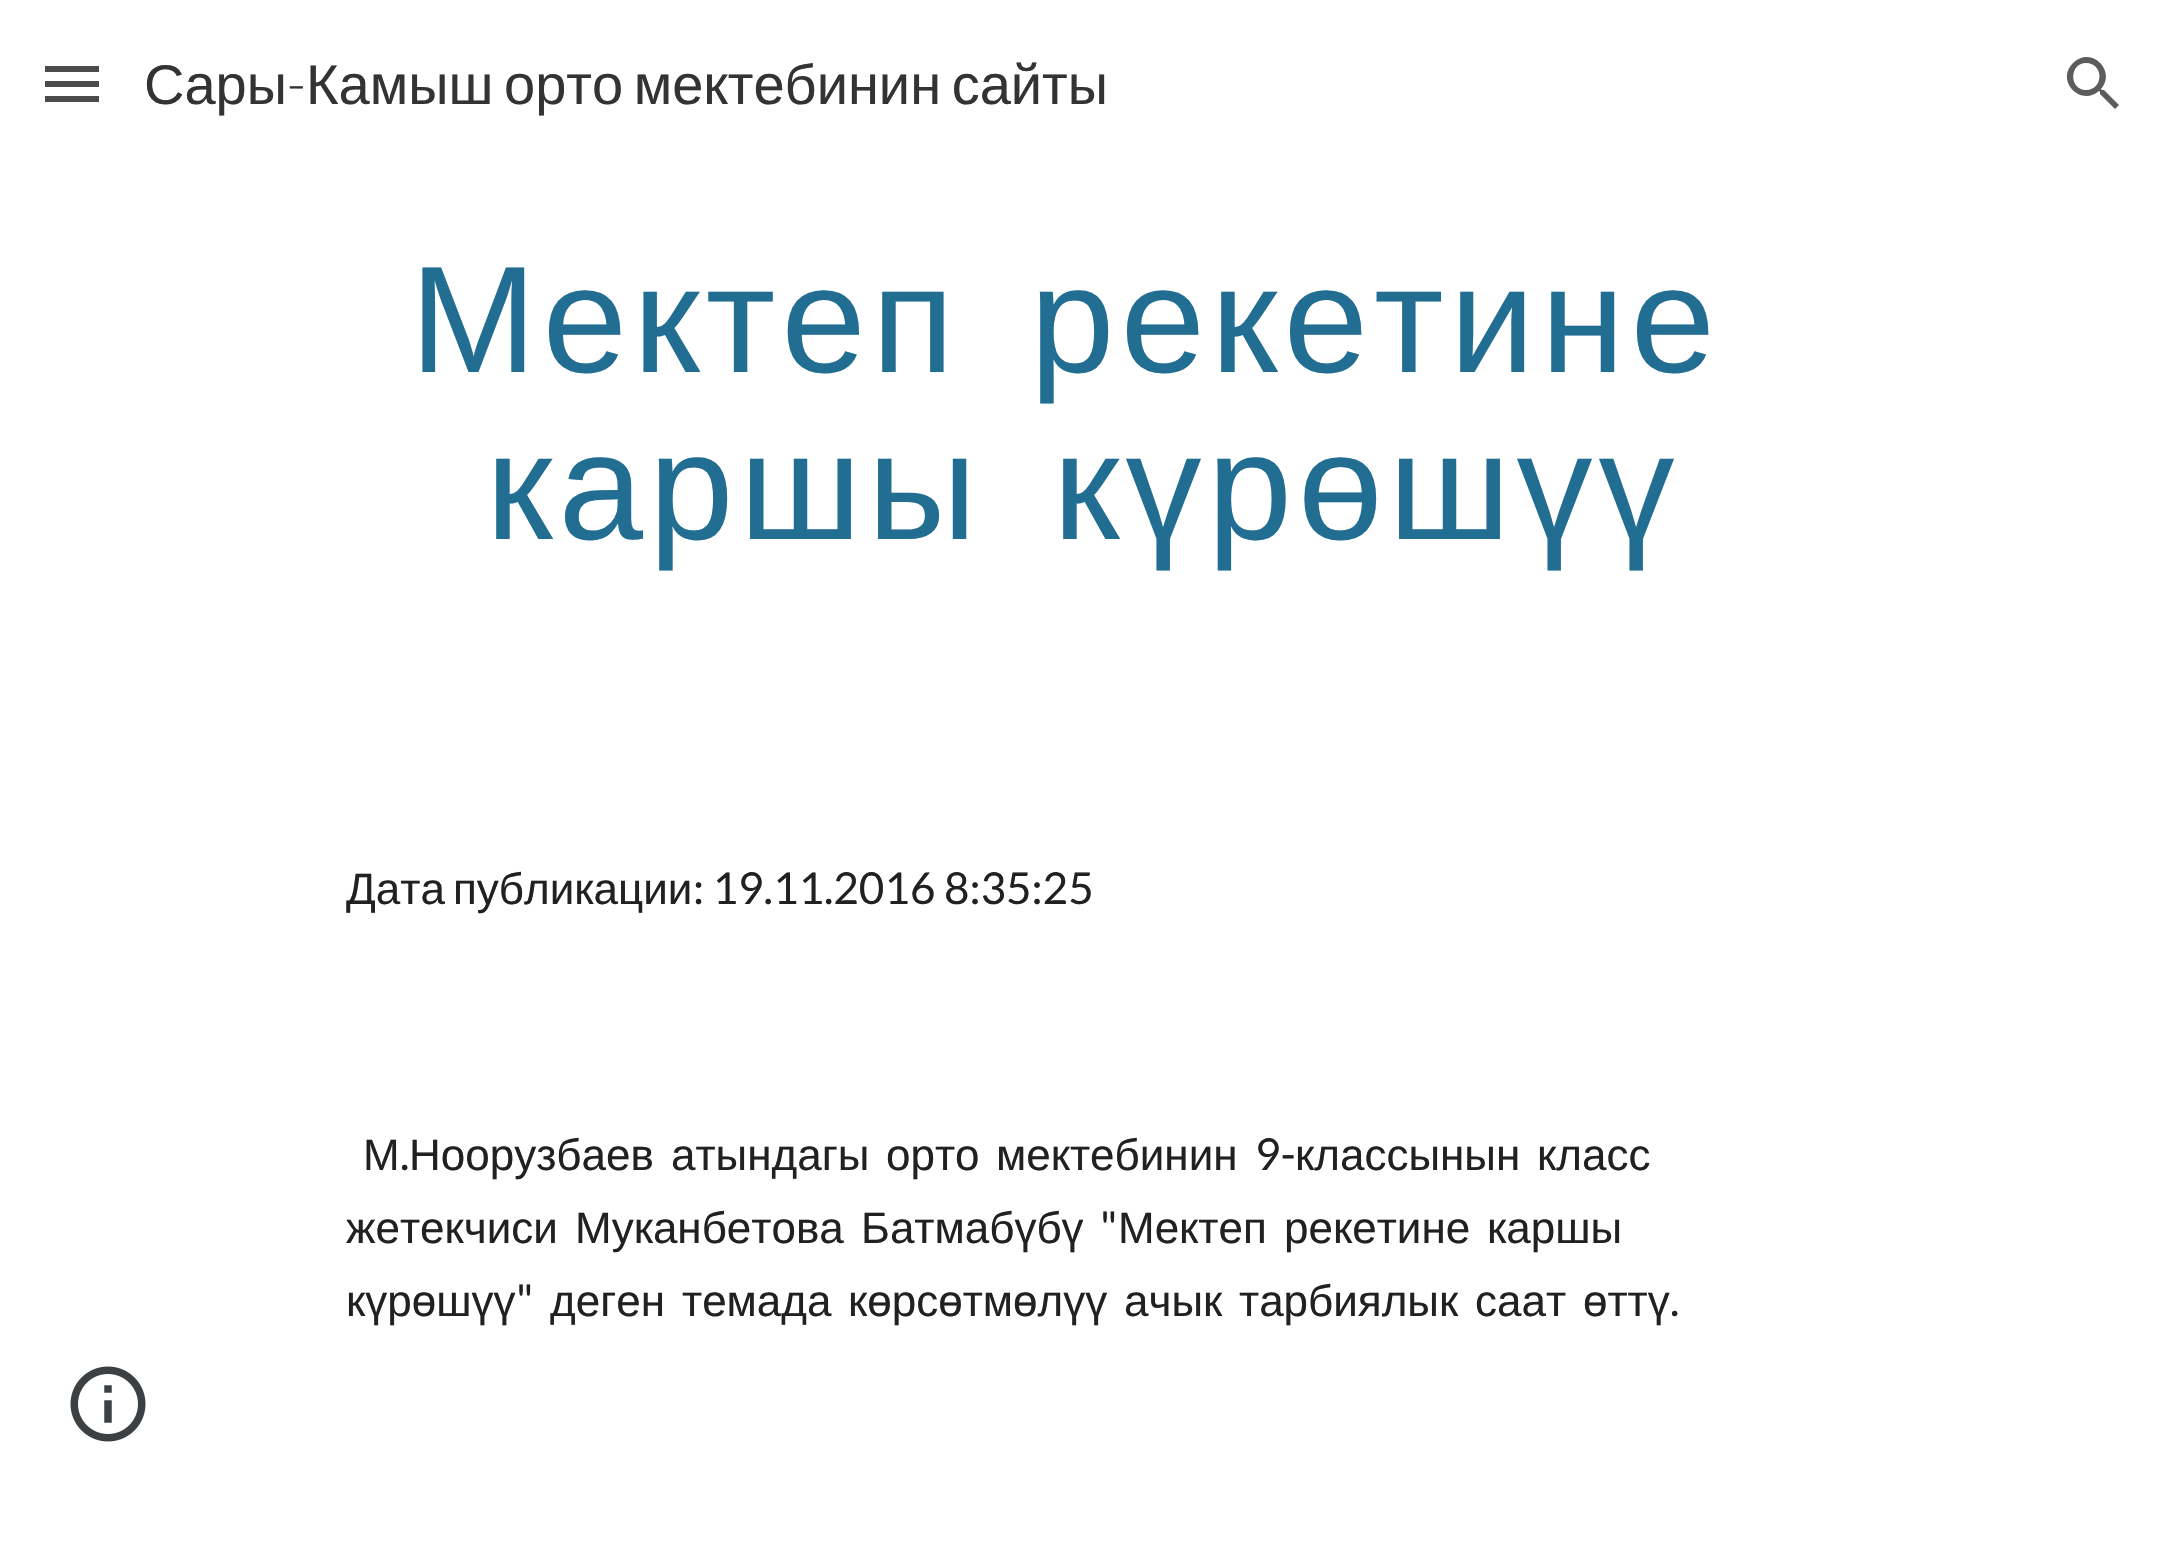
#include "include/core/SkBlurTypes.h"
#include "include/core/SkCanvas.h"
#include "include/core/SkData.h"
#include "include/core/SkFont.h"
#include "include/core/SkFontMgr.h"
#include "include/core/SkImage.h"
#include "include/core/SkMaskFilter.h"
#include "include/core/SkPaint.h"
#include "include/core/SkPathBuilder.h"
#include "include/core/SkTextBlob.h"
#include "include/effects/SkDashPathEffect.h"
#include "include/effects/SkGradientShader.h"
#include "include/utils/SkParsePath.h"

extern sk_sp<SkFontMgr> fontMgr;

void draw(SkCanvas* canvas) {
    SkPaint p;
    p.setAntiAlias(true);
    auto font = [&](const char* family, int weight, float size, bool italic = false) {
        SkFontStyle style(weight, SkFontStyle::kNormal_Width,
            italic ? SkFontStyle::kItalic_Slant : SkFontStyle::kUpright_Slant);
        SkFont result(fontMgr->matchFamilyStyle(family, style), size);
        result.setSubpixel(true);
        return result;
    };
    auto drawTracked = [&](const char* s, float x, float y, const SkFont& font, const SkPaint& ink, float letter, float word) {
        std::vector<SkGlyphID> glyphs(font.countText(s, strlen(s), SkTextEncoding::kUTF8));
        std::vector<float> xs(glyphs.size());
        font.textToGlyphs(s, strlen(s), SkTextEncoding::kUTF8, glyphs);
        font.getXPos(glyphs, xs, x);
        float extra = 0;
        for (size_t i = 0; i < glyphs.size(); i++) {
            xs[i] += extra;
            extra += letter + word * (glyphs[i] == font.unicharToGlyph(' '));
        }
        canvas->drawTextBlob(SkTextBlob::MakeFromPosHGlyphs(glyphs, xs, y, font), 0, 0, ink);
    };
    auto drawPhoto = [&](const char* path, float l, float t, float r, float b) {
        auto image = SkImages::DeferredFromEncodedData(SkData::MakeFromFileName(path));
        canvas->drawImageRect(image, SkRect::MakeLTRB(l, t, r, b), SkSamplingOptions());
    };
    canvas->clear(0xFFFFFFFF);
    {
        const struct { float l, t, r, b; SkColor color; } items[] = {
            {45, 66, 99, 72, 0xFF4B4B4B},
            {45, 81, 99, 87, 0xFF4B4B4B},
            {45, 96, 99, 102, 0xFF4B4B4B},
        };
        for (auto [l, t, r, b, color] : items) {
            p.setColor(color);
            canvas->drawRect(SkRect::MakeLTRB(l, t, r, b), p);
        }
    }
    auto font1 = font("Liberation Sans", 400, 56);
    p.setColor(0xFF333333);
    canvas->drawString("Сары", 144, 104, font1, p);
    auto font2 = font("Lato", 300, 56);
    canvas->drawString("-", 287, 104, font2, p);
    drawTracked("Камыш орто мектебинин сайты", 306, 104, font1, p, 0, -5);
    p.setColor(0xFF5C5C5C);
    canvas->drawPath(SkPathBuilder().moveTo(2104, 90).lineTo(2102, 90).lineTo(2101, 89).cubicTo(2117, 71, 2091, 45, 2073, 63).cubicTo(2055, 81, 2081, 107, 2099, 91).lineTo(2100, 92).lineTo(2100, 94).lineTo(2115, 109).lineTo(2119, 105).close().moveTo(2086, 90).cubicTo(2069, 90, 2069, 63, 2086, 63).cubicTo(2104, 63, 2104, 90, 2086, 90).close().detach(), p);
    auto font3 = font("Liberation Sans", 400, 152);
    p.setColor(0xFF226E93);
    {
        const struct { const char* s; float x, y; } items[] = {
            {"Мектеп", 410, 372},
            {"рекетине", 1030, 372},
            {"каршы", 486, 539},
            {"күрөшүү", 1053, 539},
        };
        for (auto [s, x, y] : items) {
            drawTracked(s, x, y, font3, p, 6, 0);
        }
    }
    auto font4 = font("Liberation Sans", 400, 44);
    p.setColor(0xFF212121);
    canvas->drawString("Дата", 346, 904, font4, p);
    canvas->drawString("публикации", 453, 904, font4, p);
    auto font5 = font("Lato", 400, 44);
    canvas->drawString(": 19.11.2016 8:35:25", 693, 904, font5, p);
    canvas->drawString("М", 363, 1170, font4, p);
    canvas->drawString(".", 400, 1170, font5, p);
    {
        const struct { const char* s; float x, y; } items[] = {
            {"Ноорузбаев", 409, 1170},
            {"атындагы", 671, 1170},
            {"орто", 886, 1170},
            {"мектебинин", 996, 1170},
        };
        for (auto [s, x, y] : items) {
            canvas->drawString(s, x, y, font4, p);
        }
    }
    canvas->drawString("9-", 1255, 1170, font5, p);
    {
        const struct { const char* s; float x, y; } items[] = {
            {"классынын", 1295, 1170},
            {"класс", 1537, 1170},
            {"жетекчиси", 346, 1243},
            {"Муканбетова", 575, 1243},
            {"Батмабүбү", 861, 1243},
        };
        for (auto [s, x, y] : items) {
            canvas->drawString(s, x, y, font4, p);
        }
    }
    canvas->drawString("\"", 1100, 1243, font5, p);
    {
        const struct { const char* s; float x, y; } items[] = {
            {"Мектеп", 1118, 1243},
            {"рекетине", 1284, 1243},
            {"каршы", 1487, 1243},
        };
        for (auto [s, x, y] : items) {
            canvas->drawString(s, x, y, font4, p);
        }
    }
    canvas->drawString("\"", 516, 1316, font5, p);
    {
        const struct { const char* s; float x, y; } items[] = {
            {"тарбиялык", 1239, 1316},
            {"күрөшүү", 346, 1316},
            {"деген", 550, 1316},
            {"темада", 682, 1316},
            {"көрсөтмөлүү", 848, 1316},
            {"ачык", 1124, 1316},
            {"саат", 1475, 1316},
            {"өттү", 1583, 1316},
        };
        for (auto [s, x, y] : items) {
            canvas->drawString(s, x, y, font4, p);
        }
    }
    canvas->drawString(".", 1670, 1316, font5, p);
    drawPhoto("media/1.png", 70, 1366, 146, 1442);
}
